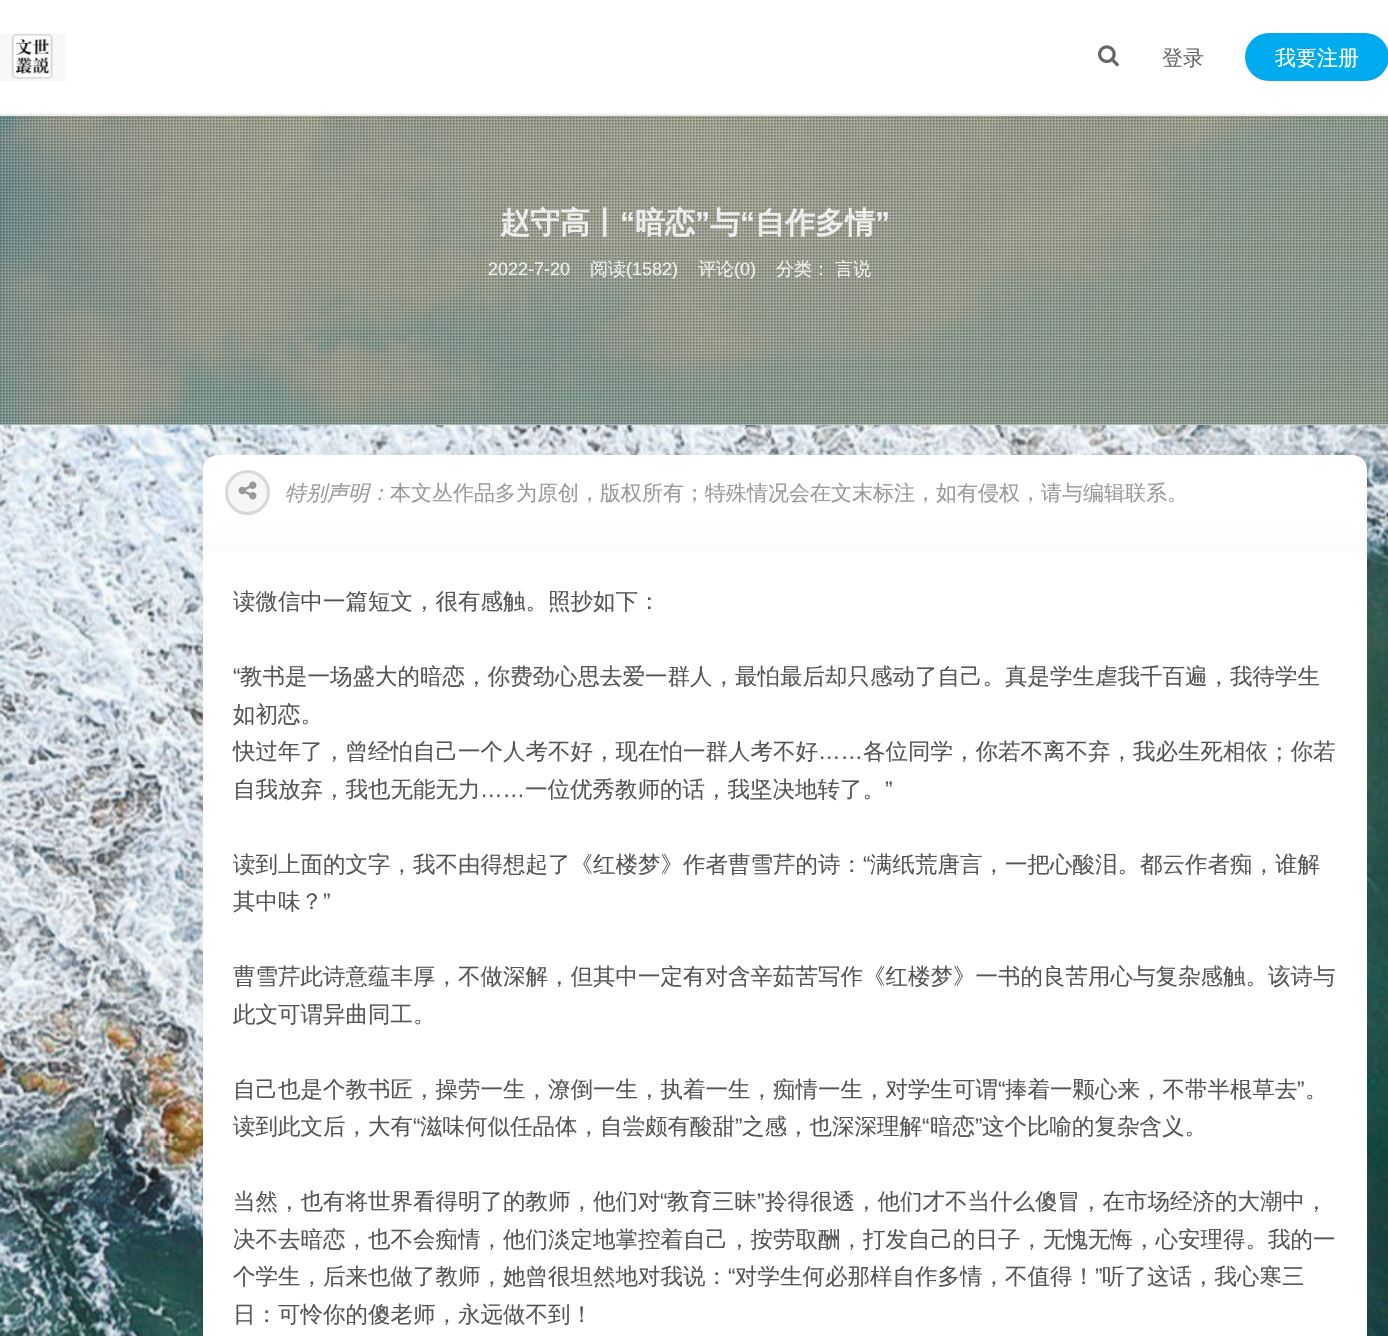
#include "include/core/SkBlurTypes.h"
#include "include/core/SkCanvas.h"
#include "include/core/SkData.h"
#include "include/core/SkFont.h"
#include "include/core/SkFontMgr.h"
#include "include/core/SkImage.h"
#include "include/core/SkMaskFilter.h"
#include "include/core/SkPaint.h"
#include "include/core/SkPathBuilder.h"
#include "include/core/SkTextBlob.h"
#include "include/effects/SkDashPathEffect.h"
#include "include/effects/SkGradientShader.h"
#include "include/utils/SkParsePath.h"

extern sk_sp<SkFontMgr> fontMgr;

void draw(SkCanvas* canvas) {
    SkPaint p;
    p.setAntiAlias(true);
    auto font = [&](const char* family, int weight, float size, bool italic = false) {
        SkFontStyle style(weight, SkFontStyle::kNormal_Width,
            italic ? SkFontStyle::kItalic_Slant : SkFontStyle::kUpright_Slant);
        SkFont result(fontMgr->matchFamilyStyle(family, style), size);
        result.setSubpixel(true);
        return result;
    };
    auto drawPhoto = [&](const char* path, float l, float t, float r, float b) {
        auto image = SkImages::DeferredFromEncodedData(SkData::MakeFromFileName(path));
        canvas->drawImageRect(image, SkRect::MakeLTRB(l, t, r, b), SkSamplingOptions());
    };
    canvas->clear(0xFFFFFFFF);
    drawPhoto("media/1.png", 0, 425, 1388, 1336);
    p.setColor(0x1AA1A1A1);
    p.setMaskFilter(SkMaskFilter::MakeBlur(kNormal_SkBlurStyle, 15));
    canvas->drawRoundRect(SkRect::MakeLTRB(203, 455, 1367, 552), 15, 15, p);
    p.setMaskFilter(nullptr);
    drawPhoto("media/4.png", 0, 116, 1388, 425);
    drawPhoto("media/5.png", 0, 116, 1388, 425);
    p.setColor(0x0D000000);
    p.setMaskFilter(SkMaskFilter::MakeBlur(kNormal_SkBlurStyle, 3));
    canvas->drawRect(SkRect::MakeLTRB(0, 2, 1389, 117), p);
    p.setMaskFilter(nullptr);
    p.setColor(0xFFFFFFFF);
    canvas->drawRect(SkRect::MakeLTRB(0, 0, 1388, 114), p);
    p.setColor(0xFFEBEBEB);
    canvas->drawRect(SkRect::MakeLTRB(0, 114, 1388, 116), p);
    drawPhoto("media/2.png", 0, 33, 66, 81);
    drawPhoto("media/3.png", 1098, 45, 1119, 67);
    auto font1 = font("WenQuanYi Zen Hei", 500, 21);
    p.setColor(0xFF666666);
    canvas->drawString("登录", 1162, 65, font1, p);
    p.setColor(0xFF00AAEE);
    canvas->drawRoundRect(SkRect::MakeLTRB(1245, 33, 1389, 81), 24, 24, p);
    p.setColor(0xFFFFFFFF);
    canvas->drawString("我要注册", 1275, 65, font1, p);
    auto font2 = font("WenQuanYi Zen Hei", 700, 30);
    p.setColor(0xFFEEEEEE);
    canvas->drawString("赵守高丨", 500, 233, font2, p);
    auto font3 = font("Liberation Sans", 700, 30);
    canvas->drawString("“", 620, 233, font3, p);
    canvas->drawString("暗恋", 635, 233, font2, p);
    canvas->drawString("”", 695, 233, font3, p);
    canvas->drawString("与", 710, 233, font2, p);
    canvas->drawString("“", 740, 233, font3, p);
    canvas->drawString("自作多情", 755, 233, font2, p);
    canvas->drawString("”", 875, 233, font3, p);
    auto font4 = font("Liberation Sans", 400, 18);
    canvas->drawString("2022-7-20", 488, 275, font4, p);
    auto font5 = font("WenQuanYi Zen Hei", 500, 18);
    canvas->drawString("阅读", 590, 275, font5, p);
    canvas->drawString("(1582)", 626, 275, font4, p);
    canvas->drawString("评论", 698, 275, font5, p);
    canvas->drawString("(0)", 734, 275, font4, p);
    canvas->drawString("分类：", 776, 275, font5, p);
    canvas->drawString("言说", 835, 275, font5, p);
    p.setColor(0xFFFFFFFF);
    canvas->drawPath(SkPathBuilder().moveTo(218, 455).lineTo(1352, 455).cubicTo(1360.5f, 455, 1367, 461.5f, 1367, 470).lineTo(1367, 552).lineTo(203, 552).lineTo(203, 470).cubicTo(203, 461.5f, 209.5f, 455, 218, 455).close().detach(), p);
    p.setColor(0x1AA0A0A0);
    p.setMaskFilter(SkMaskFilter::MakeBlur(kNormal_SkBlurStyle, 15));
    canvas->drawRect(SkRect::MakeLTRB(203, 552, 1367, 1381), p);
    p.setMaskFilter(nullptr);
    p.setColor(0xFFF6F6F6);
    canvas->drawCircle(247.5f, 492.5f, 21, p);
    p.setStyle(SkPaint::kStroke_Style);
    p.setStrokeWidth(3);
    p.setColor(0xFFD8D8D8);
    canvas->drawCircle(247.5f, 492.5f, 21, p);
    drawPhoto("media/6.png", 238, 481, 257, 500);
    auto font6 = font("WenQuanYi Zen Hei", 500, 21, true);
    p.setStyle(SkPaint::kFill_Style);
    p.setColor(0xFF999999);
    canvas->drawString("特别声明：", 285, 500, font6, p);
    canvas->drawString("本文丛作品多为原创，版权所有；特殊情况会在文末标注，如有侵权，请与编辑联系。", 390, 500, font1, p);
    p.setColor(0xFFFFFFFF);
    canvas->drawRect(SkRect::MakeLTRB(203, 552, 1367, 1336), p);
    auto font7 = font("WenQuanYi Zen Hei", 500, 22.5f);
    p.setColor(0xFF555555);
    canvas->drawString("读微信中一篇短文，很有感触。照抄如下：", 233, 609, font7, p);
    auto font8 = font("Liberation Sans", 400, 22.5f);
    canvas->drawString("“", 233, 684, font8, p);
    {
        const struct { const char* s; float x, y; } items[] = {
            {"教书是一场盛大的暗恋，你费劲心思去爱一群人，最怕最后却只感动了自己。真是学生虐我千百遍，我待学生", 240, 684},
            {"如初恋。", 233, 722},
            {"快过年了，曾经怕自己一个人考不好，现在怕一群人考不好", 233, 759},
        };
        for (auto [s, x, y] : items) {
            canvas->drawString(s, x, y, font7, p);
        }
    }
    canvas->drawString("……", 818, 759, font8, p);
    {
        const struct { const char* s; float x, y; } items[] = {
            {"各位同学，你若不离不弃，我必生死相依；你若", 863, 759},
            {"自我放弃，我也无能无力", 233, 797},
            {"一位优秀教师的话，我坚决地转了。", 525, 797},
        };
        for (auto [s, x, y] : items) {
            canvas->drawString(s, x, y, font7, p);
        }
    }
    canvas->drawString("”", 885, 797, font8, p);
    canvas->drawString("……", 480, 797, font8, p);
    canvas->drawString("读到上面的文字，我不由得想起了《红楼梦》作者曹雪芹的诗：", 233, 872, font7, p);
    canvas->drawString("“", 863, 872, font8, p);
    canvas->drawString("满纸荒唐言，一把心酸泪。都云作者痴，谁解", 870, 872, font7, p);
    canvas->drawString("其中味？", 233, 909, font7, p);
    canvas->drawString("”", 323, 909, font8, p);
    {
        const struct { const char* s; float x, y; } items[] = {
            {"曹雪芹此诗意蕴丰厚，不做深解，但其中一定有对含辛茹苦写作《红楼梦》一书的良苦用心与复杂感触。该诗与", 233, 984},
            {"此文可谓异曲同工。", 233, 1022},
            {"自己也是个教书匠，操劳一生，潦倒一生，执着一生，痴情一生，对学生可谓", 233, 1097},
        };
        for (auto [s, x, y] : items) {
            canvas->drawString(s, x, y, font7, p);
        }
    }
    canvas->drawString("“", 998, 1097, font8, p);
    canvas->drawString("捧着一颗心来，不带半根草去", 1005, 1097, font7, p);
    canvas->drawString("”", 1297, 1097, font8, p);
    canvas->drawString("。", 1305, 1097, font7, p);
    canvas->drawString("读到此文后，大有", 233, 1134, font7, p);
    canvas->drawString("“", 413, 1134, font8, p);
    canvas->drawString("滋味何似任品体，自尝颇有酸甜", 420, 1134, font7, p);
    canvas->drawString("”", 735, 1134, font8, p);
    canvas->drawString("之感，也深深理解", 742, 1134, font7, p);
    canvas->drawString("“", 922, 1134, font8, p);
    canvas->drawString("暗恋", 930, 1134, font7, p);
    canvas->drawString("”", 975, 1134, font8, p);
    canvas->drawString("这个比喻的复杂含义。", 982, 1134, font7, p);
    canvas->drawString("当然，也有将世界看得明了的教师，他们对", 233, 1209, font7, p);
    canvas->drawString("“", 660, 1209, font8, p);
    canvas->drawString("教育三昧", 667, 1209, font7, p);
    canvas->drawString("”", 757, 1209, font8, p);
    {
        const struct { const char* s; float x, y; } items[] = {
            {"拎得很透，他们才不当什么傻冒，在市场经济的大潮中，", 765, 1209},
            {"决不去暗恋，也不会痴情，他们淡定地掌控着自己，按劳取酬，打发自己的日子，无愧无悔，心安理得。我的一", 233, 1247},
            {"个学生，后来也做了教师，她曾很坦然地对我说：", 233, 1284},
        };
        for (auto [s, x, y] : items) {
            canvas->drawString(s, x, y, font7, p);
        }
    }
    canvas->drawString("“", 728, 1284, font8, p);
    canvas->drawString("对学生何必那样自作多情，不值得！", 735, 1284, font7, p);
    canvas->drawString("”", 1095, 1284, font8, p);
    canvas->drawString("听了这话，我心寒三", 1102, 1284, font7, p);
    canvas->drawString("日：可怜你的傻老师，永远做不到！", 233, 1322, font7, p);
}
